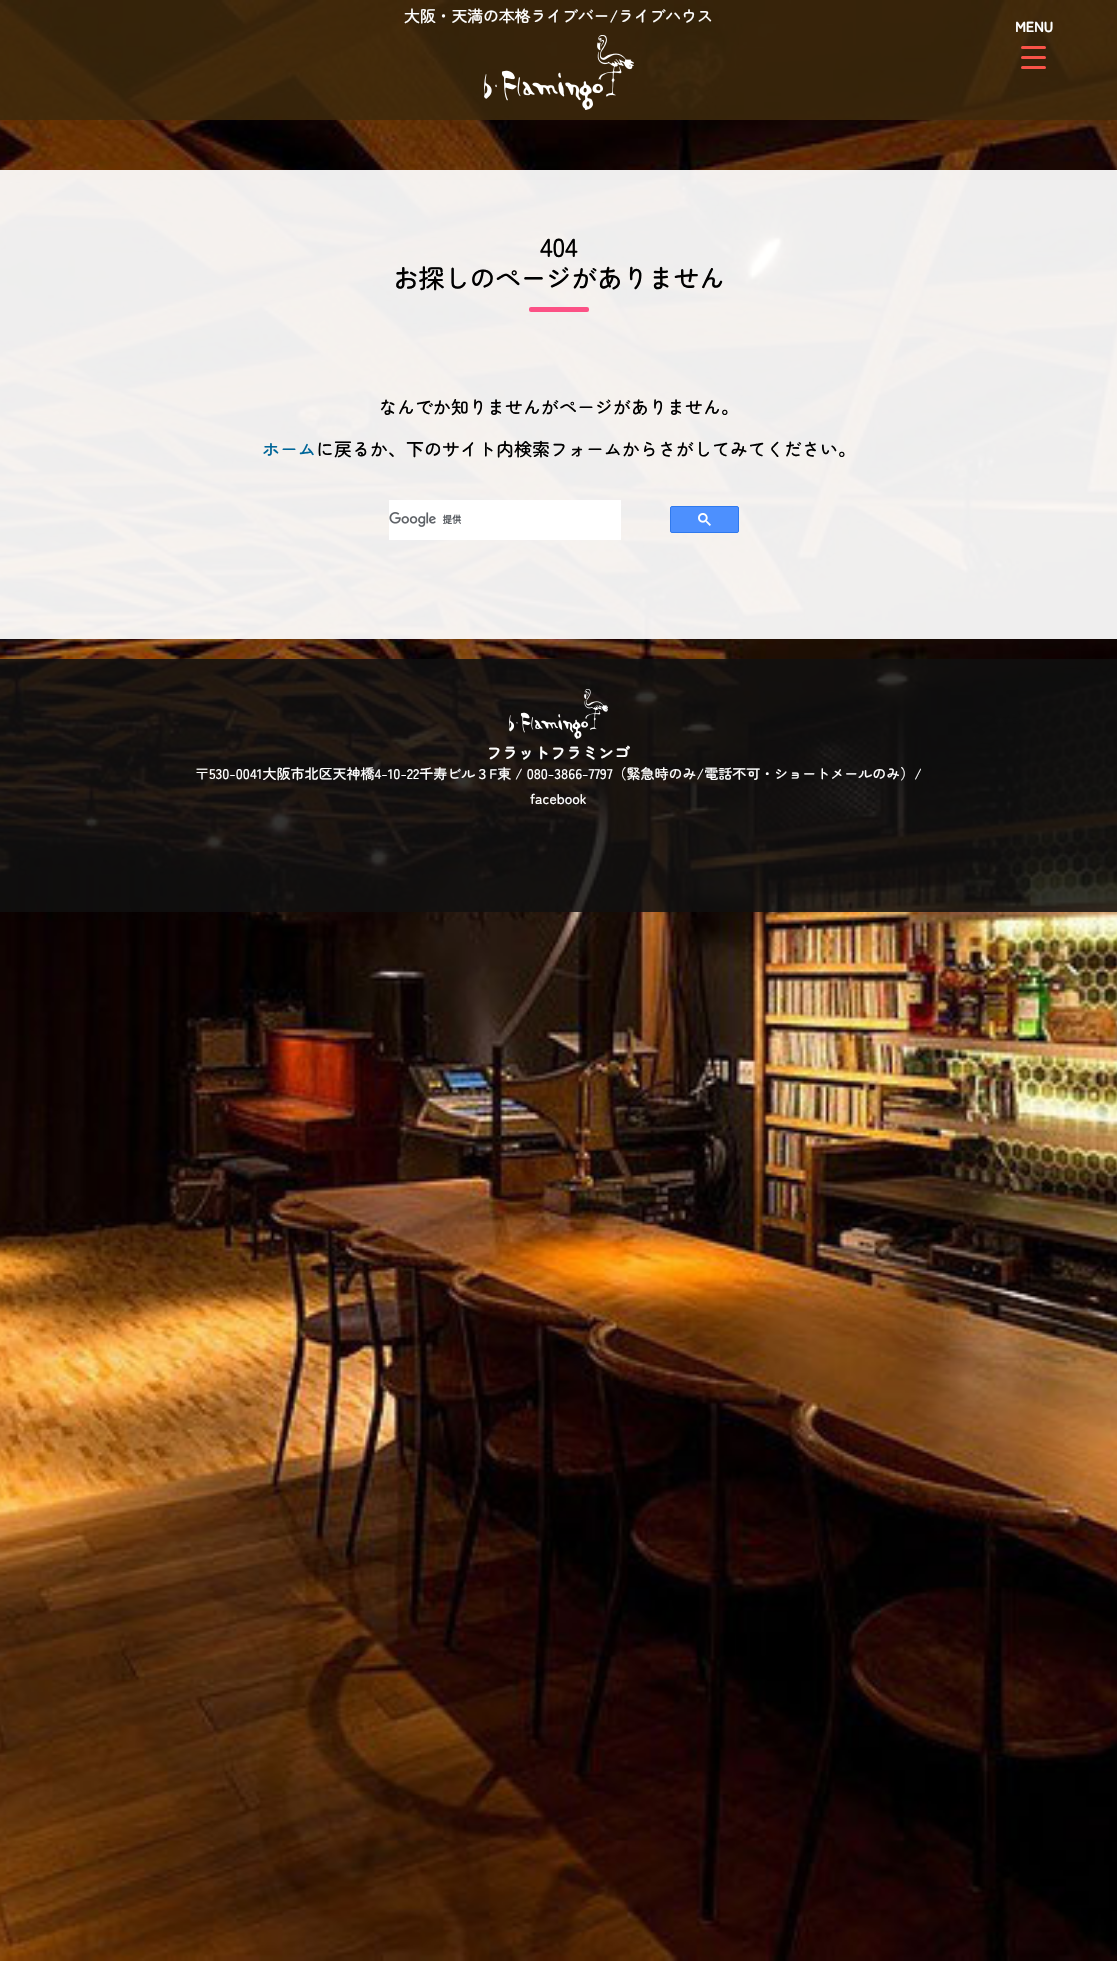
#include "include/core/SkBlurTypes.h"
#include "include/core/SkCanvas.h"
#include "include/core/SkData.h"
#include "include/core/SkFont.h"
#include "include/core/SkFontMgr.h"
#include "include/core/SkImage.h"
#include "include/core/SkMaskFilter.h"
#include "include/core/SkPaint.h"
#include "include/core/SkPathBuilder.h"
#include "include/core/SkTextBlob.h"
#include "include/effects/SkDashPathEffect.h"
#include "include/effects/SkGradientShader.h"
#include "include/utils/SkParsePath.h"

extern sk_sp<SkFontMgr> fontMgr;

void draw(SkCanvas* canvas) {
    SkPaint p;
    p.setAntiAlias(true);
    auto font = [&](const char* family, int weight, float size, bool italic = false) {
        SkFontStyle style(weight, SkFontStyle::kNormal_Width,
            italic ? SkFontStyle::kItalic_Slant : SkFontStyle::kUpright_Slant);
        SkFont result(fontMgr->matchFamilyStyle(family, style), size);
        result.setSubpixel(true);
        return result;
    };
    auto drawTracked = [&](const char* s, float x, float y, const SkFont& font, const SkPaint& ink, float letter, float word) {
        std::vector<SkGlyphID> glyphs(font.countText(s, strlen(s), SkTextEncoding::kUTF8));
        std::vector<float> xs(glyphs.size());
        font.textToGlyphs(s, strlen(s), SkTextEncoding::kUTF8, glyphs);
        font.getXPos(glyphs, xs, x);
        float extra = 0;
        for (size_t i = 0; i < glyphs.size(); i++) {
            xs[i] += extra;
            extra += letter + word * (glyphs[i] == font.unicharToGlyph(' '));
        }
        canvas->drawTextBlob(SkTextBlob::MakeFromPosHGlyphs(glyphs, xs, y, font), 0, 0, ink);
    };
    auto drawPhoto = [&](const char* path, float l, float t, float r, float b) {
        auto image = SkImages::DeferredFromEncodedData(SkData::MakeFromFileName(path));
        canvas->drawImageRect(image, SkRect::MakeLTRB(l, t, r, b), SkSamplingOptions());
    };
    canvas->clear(0xFFFFFFFF);
    drawPhoto("media/1.png", 0, 0, 1117, 1961);
    p.setColor(0xD93C280A);
    canvas->drawRect(SkRect::MakeLTRB(0, 0, 1117, 120), p);
    auto font1 = font("Zen Maru Gothic", 500, 16);
    p.setColor(0xFFFFFFFF);
    drawTracked("大阪・天満の本格ライブバー/ライブハウス", 404, 22, font1, p, -0.2f, 0);
    drawPhoto("media/2.png", 484, 35, 634, 110);
    p.setColor(0xEDFFFFFF);
    canvas->drawRect(SkRect::MakeLTRB(0, 170, 1117, 639), p);
    auto font2 = font("Zen Maru Gothic", 500, 26);
    p.setColor(0xFF000000);
    drawTracked("404", 540, 257, font2, p, -0.5f, 0);
    drawTracked("お探しのページがありません", 393, 288, font2, p, -0.5f, 0);
    p.setColor(0xFFFC5185);
    canvas->drawRoundRect(SkRect::MakeLTRB(529, 307, 589, 312), 2, 2, p);
    auto font3 = font("Zen Maru Gothic", 500, 18);
    p.setColor(0xFF000000);
    canvas->drawString("なんでか知りませんがページがありません。", 379, 414, font3, p);
    p.setColor(0xFF006699);
    canvas->drawString("ホーム", 262, 456, font3, p);
    p.setColor(0xFF000000);
    canvas->drawString("に戻るか、下のサイト内検索フォームからさがしてみてください。", 316, 456, font3, p);
    p.setColor(0xFFFFFFFF);
    canvas->drawRect(SkRect::MakeLTRB(389, 500, 621, 540), p);
    drawPhoto("media/3.png", 389, 512, 462, 527);
    p.setColor(0xFF4D90FE);
    canvas->drawRoundRect(SkRect::MakeLTRB(670.5f, 506.5f, 738.5f, 532.5f), 1.5f, 1.5f, p);
    p.setStyle(SkPaint::kStroke_Style);
    p.setStrokeWidth(1);
    p.setColor(0xFF3079ED);
    canvas->drawRoundRect(SkRect::MakeLTRB(670.5f, 506.5f, 738.5f, 532.5f), 1.5f, 1.5f, p);
    drawPhoto("media/4.png", 698, 513, 711, 526);
    p.setStyle(SkPaint::kFill_Style);
    p.setColor(0xD90F0F0F);
    canvas->drawRect(SkRect::MakeLTRB(0, 659, 1117, 912), p);
    drawPhoto("media/5.png", 509, 689, 608, 739);
    auto font4 = font("Zen Maru Gothic", 700, 16);
    p.setColor(0xFFFFFFFF);
    canvas->drawString("フラットフラミンゴ", 486, 759, font4, p);
    auto font5 = font("Zen Maru Gothic", 500, 14);
    canvas->drawString("〒530-0041大阪市北区天神橋4-10-22千寿ビル３F東 / 080-3866-7797（緊急時のみ/電話不可・ショートメールのみ）/", 195, 779, font5, p);
    canvas->drawString("facebook", 530, 804, font5, p);
    auto font6 = font("Zen Maru Gothic", 700, 14);
    canvas->drawString("MENU", 1015, 32, font6, p);
    p.setColor(0xFFF95348);
    canvas->drawRoundRect(SkRect::MakeLTRB(1021, 56, 1046, 59), 1.5f, 1.5f, p);
    canvas->drawRoundRect(SkRect::MakeLTRB(1021, 46, 1046, 49), 1.5f, 1.5f, p);
    canvas->drawRoundRect(SkRect::MakeLTRB(1021, 66, 1046, 69), 1.5f, 1.5f, p);
}
